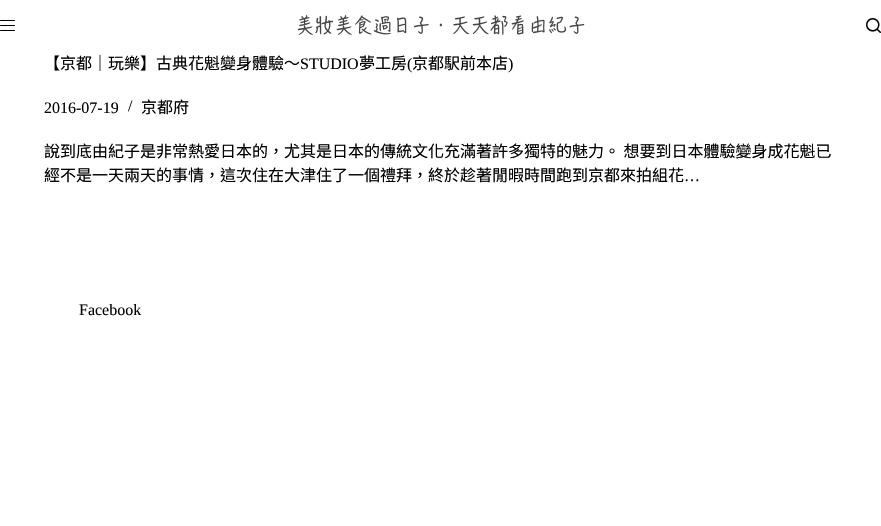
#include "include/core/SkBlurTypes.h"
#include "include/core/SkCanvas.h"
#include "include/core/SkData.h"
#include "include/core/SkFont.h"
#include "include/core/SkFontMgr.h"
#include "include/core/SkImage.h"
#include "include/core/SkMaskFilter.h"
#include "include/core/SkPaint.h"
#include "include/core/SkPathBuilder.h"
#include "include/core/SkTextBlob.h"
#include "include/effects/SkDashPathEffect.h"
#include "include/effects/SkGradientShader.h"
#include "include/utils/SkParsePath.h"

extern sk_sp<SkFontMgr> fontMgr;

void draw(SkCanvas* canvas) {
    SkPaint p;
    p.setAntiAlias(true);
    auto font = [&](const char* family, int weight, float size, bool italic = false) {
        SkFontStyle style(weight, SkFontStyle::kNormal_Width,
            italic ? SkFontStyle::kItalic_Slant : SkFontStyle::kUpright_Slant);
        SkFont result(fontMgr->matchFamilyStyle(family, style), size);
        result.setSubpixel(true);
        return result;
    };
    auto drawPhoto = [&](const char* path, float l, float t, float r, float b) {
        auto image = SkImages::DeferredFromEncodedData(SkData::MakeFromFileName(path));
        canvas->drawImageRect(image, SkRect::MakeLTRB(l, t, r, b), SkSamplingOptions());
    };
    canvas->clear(0xFFFFFFFF);
    p.setColor(0xFF000000);
    canvas->drawRoundRect(SkRect::MakeLTRB(0, 20, 15, 21), 0.5f, 0.5f, p);
    canvas->drawRoundRect(SkRect::MakeLTRB(0, 25, 15, 26), 0.5f, 0.5f, p);
    canvas->drawRoundRect(SkRect::MakeLTRB(0, 30, 15, 31), 0.5f, 0.5f, p);
    drawPhoto("media/1.png", 297, 15, 585, 35);
    drawPhoto("media/2.png", 866, 18, 881, 33);
    auto font1 = font("Noto Sans CJK TC", 400, 16);
    canvas->drawString("【京都｜玩樂】古典花魁變身體驗～", 44, 69, font1, p);
    auto font2 = font("Liberation Serif", 400, 16);
    canvas->drawString("STUDIO", 300, 69, font2, p);
    canvas->drawString("夢工房", 359, 69, font1, p);
    canvas->drawString("(", 407, 69, font2, p);
    canvas->drawString("京都駅前本店", 412, 69, font1, p);
    {
        const struct { const char* s; float x, y; } items[] = {
            {")", 508, 69},
            {"2016-07-19", 44, 113},
            {"/", 128, 111},
        };
        for (auto [s, x, y] : items) {
            canvas->drawString(s, x, y, font2, p);
        }
    }
    {
        const struct { const char* s; float x, y; } items[] = {
            {"京都府", 141, 113},
            {"說到底由紀子是非常熱愛日本的，尤其是日本的傳統文化充滿著許多獨特的魅力。 想要到日本體驗變身成花魁已", 44, 157},
            {"經不是一天兩天的事情，這次住在大津住了一個禮拜，終於趁著閒暇時間跑到京都來拍組花", 44, 181},
        };
        for (auto [s, x, y] : items) {
            canvas->drawString(s, x, y, font1, p);
        }
    }
    canvas->drawString("…", 684, 181, font2, p);
    canvas->drawString("Facebook", 79, 315, font2, p);
}
